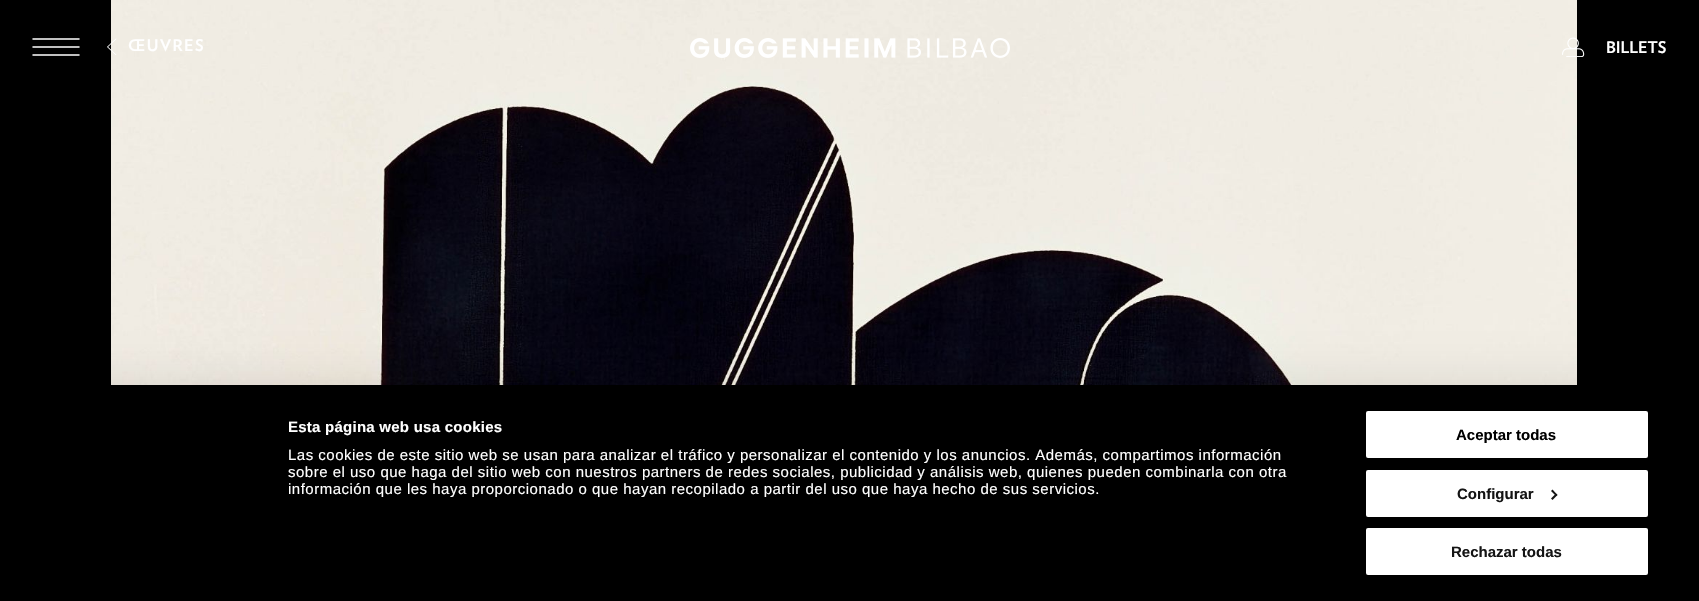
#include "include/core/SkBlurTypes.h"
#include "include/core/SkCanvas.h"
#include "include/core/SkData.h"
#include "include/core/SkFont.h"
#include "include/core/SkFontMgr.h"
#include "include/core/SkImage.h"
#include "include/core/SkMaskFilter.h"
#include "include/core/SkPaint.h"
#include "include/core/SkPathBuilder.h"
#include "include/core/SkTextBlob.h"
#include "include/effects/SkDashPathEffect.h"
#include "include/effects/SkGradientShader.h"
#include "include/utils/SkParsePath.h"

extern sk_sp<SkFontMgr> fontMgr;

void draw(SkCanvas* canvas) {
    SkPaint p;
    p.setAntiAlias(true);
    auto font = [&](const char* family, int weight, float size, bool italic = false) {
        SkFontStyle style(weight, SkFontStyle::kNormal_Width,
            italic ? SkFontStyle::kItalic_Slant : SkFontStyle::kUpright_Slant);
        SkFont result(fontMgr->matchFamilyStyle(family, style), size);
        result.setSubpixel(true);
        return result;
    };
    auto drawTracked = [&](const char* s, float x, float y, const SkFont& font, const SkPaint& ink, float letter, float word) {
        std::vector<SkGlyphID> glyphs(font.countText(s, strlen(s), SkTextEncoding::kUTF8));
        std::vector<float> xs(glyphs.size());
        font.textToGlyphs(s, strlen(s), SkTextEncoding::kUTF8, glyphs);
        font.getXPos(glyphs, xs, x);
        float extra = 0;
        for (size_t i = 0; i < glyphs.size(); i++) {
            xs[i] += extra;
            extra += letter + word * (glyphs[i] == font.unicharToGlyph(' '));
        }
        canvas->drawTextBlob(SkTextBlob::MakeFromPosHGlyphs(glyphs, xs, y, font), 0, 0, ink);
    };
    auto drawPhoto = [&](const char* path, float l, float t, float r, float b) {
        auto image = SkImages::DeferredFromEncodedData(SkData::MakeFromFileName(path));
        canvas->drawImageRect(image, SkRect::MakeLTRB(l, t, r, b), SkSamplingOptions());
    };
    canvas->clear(0xFF000000);
    drawPhoto("media/1.png", 111, 0, 1577, 385);
    p.setStyle(SkPaint::kStroke_Style);
    p.setStrokeWidth(1.5f);
    p.setStrokeCap(SkPaint::kRound_Cap);
    p.setColor(0xFFFFFFFF);
    canvas->drawPath(SkPathBuilder().moveTo(33, 39).lineTo(79, 39).moveTo(33, 55).lineTo(79, 55).moveTo(33, 47).lineTo(79, 47).detach(), p);
    drawPhoto("media/2.png", 107, 38, 117, 55);
    auto font1 = font("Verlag", 700, 16);
    p.setStyle(SkPaint::kFill_Style);
    drawTracked("ŒUVRES", 128, 51, font1, p, 1.5f, 0);
    drawPhoto("media/3.png", 690, 38, 1010, 58);
    drawPhoto("media/4.png", 1562, 37, 1585, 57);
    canvas->drawString("BILLETS", 1606, 53, font1, p);
    p.setColor(0x4D000000);
    p.setMaskFilter(SkMaskFilter::MakeBlur(kNormal_SkBlurStyle, 35));
    canvas->drawRoundRect(SkRect::MakeLTRB(1, 415, 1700, 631), 8, 8, p);
    p.setMaskFilter(nullptr);
    auto font2 = font("Liberation Sans", 700, 15);
    p.setColor(0xFFFFFFFF);
    drawTracked("Esta página web usa cookies", 288, 432, font2, p, 0.25f, 0);
    auto font3 = font("Liberation Sans", 400, 15);
    {
        const struct { const char* s; float x, y; } items[] = {
            {"Las cookies de este sitio web se usan para analizar el tráfico y personalizar el contenido y los anuncios. Además, compartimos información", 288, 460},
            {"sobre el uso que haga del sitio web con nuestros partners de redes sociales, publicidad y análisis web, quienes pueden combinarla con otra", 288, 477},
            {"información que les haya proporcionado o que hayan recopilado a partir del uso que haya hecho de sus servicios.", 288, 494},
        };
        for (auto [s, x, y] : items) {
            drawTracked(s, x, y, font3, p, 0.5f, 0);
        }
    }
    canvas->drawRoundRect(SkRect::MakeLTRB(1365, 410, 1649, 459), 3, 3, p);
    p.setStyle(SkPaint::kStroke_Style);
    p.setStrokeWidth(2);
    p.setStrokeCap(SkPaint::kButt_Cap);
    p.setColor(0xFF000000);
    canvas->drawRoundRect(SkRect::MakeLTRB(1365, 410, 1649, 459), 3, 3, p);
    p.setStyle(SkPaint::kFill_Style);
    canvas->drawString("Aceptar todas", 1456, 440, font2, p);
    p.setColor(0xFFFFFFFF);
    canvas->drawRoundRect(SkRect::MakeLTRB(1365, 469, 1649, 518), 3, 3, p);
    p.setStyle(SkPaint::kStroke_Style);
    p.setColor(0xFF000000);
    canvas->drawRoundRect(SkRect::MakeLTRB(1365, 469, 1649, 518), 3, 3, p);
    p.setStyle(SkPaint::kFill_Style);
    p.setColor(0xFF141414);
    canvas->drawString("Configurar", 1457, 499, font2, p);
    canvas->drawPath(SkPathBuilder().moveTo(1552.5f, 489.5f).lineTo(1557.5f, 495).lineTo(1556, 496).lineTo(1551, 491).close().detach(), p);
    canvas->drawPath(SkPathBuilder().moveTo(1556, 493.5f).lineTo(1557.5f, 495).lineTo(1552.5f, 500).lineTo(1551, 498.5f).close().detach(), p);
    p.setColor(0xFFFFFFFF);
    canvas->drawRoundRect(SkRect::MakeLTRB(1365, 527, 1649, 576), 3, 3, p);
    p.setStyle(SkPaint::kStroke_Style);
    p.setColor(0xFF000000);
    canvas->drawRoundRect(SkRect::MakeLTRB(1365, 527, 1649, 576), 3, 3, p);
    p.setStyle(SkPaint::kFill_Style);
    p.setColor(0xFF141414);
    canvas->drawString("Rechazar todas", 1451, 557, font2, p);
}
